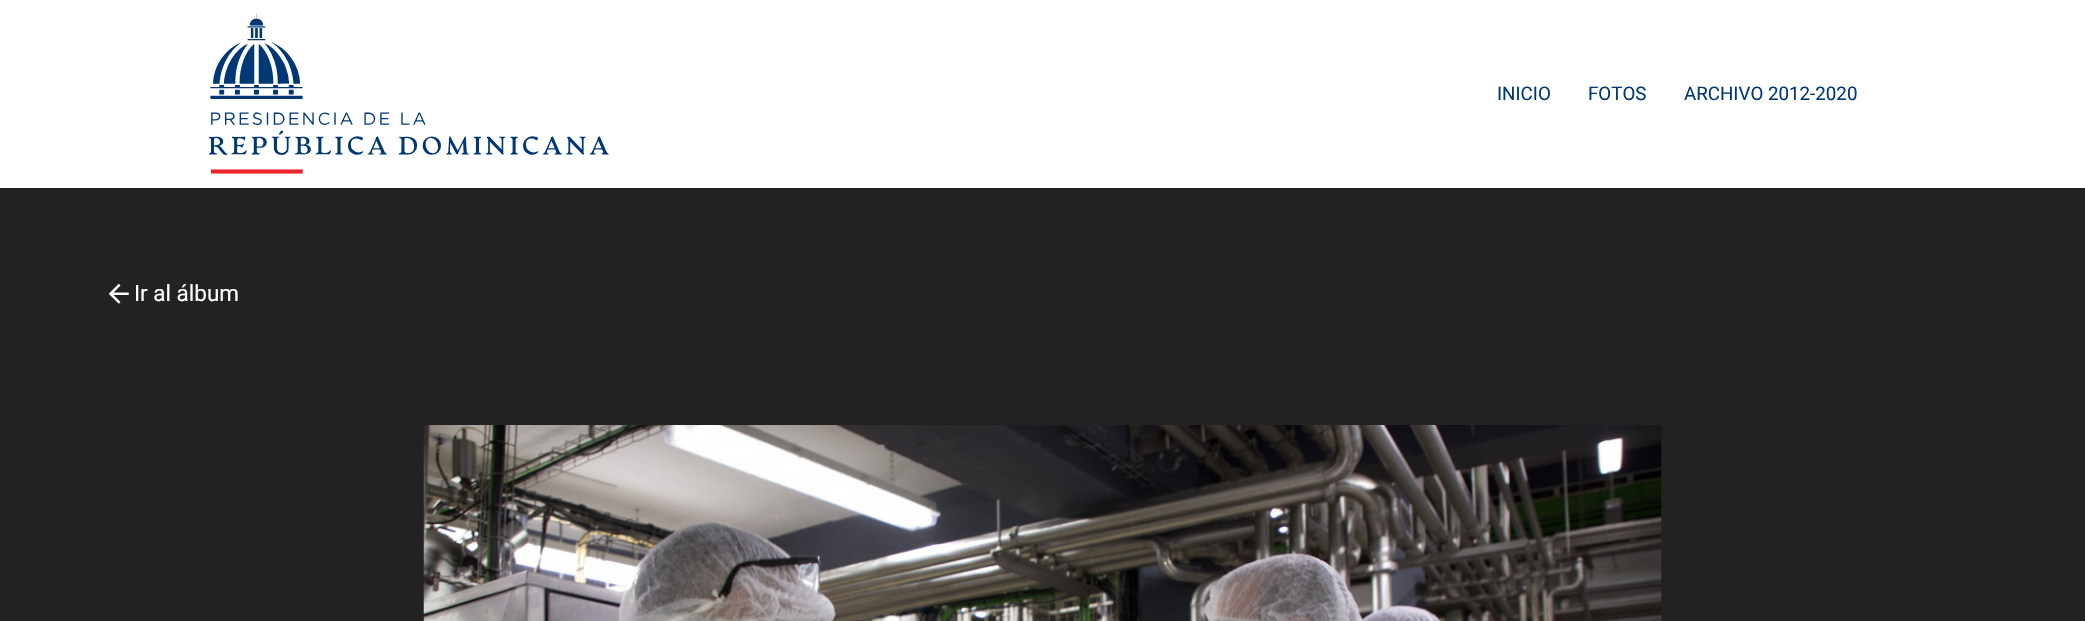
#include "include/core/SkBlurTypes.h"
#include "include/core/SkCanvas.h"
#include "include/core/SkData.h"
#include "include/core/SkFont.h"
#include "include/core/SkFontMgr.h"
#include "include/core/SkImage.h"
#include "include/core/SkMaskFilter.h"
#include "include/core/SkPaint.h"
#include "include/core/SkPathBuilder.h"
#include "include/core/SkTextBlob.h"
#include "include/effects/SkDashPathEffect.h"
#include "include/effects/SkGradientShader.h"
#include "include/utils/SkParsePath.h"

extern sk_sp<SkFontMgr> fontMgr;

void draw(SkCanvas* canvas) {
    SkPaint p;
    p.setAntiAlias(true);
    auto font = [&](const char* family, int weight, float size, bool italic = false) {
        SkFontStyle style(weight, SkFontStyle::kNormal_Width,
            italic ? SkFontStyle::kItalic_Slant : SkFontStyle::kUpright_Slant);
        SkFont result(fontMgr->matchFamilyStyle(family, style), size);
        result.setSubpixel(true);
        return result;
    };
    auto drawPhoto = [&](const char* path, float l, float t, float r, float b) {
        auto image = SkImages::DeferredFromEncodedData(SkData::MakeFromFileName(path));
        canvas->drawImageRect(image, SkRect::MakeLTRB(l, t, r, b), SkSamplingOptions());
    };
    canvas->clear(0xFFFFFFFF);
    drawPhoto("media/1.png", 209, 14, 609, 174);
    auto font1 = font("Roboto", 400, 18.75f);
    p.setColor(0xFF003876);
    {
        const struct { const char* s; float x, y; } items[] = {
            {"INICIO", 1497, 100},
            {"FOTOS", 1588, 100},
            {"ARCHIVO 2012-2020", 1684, 100},
        };
        for (auto [s, x, y] : items) {
            canvas->drawString(s, x, y, font1, p);
        }
    }
    p.setColor(0xFF222222);
    canvas->drawRect(SkRect::MakeLTRB(0, 188, 2085, 621), p);
    drawPhoto("media/2.png", 108, 283, 129, 304);
    auto font2 = font("Roboto", 400, 22.5f);
    p.setColor(0xFFFFFFFF);
    canvas->drawString("Ir al álbum", 134, 301, font2, p);
    drawPhoto("media/3.png", 423, 425, 1662, 621);
}
